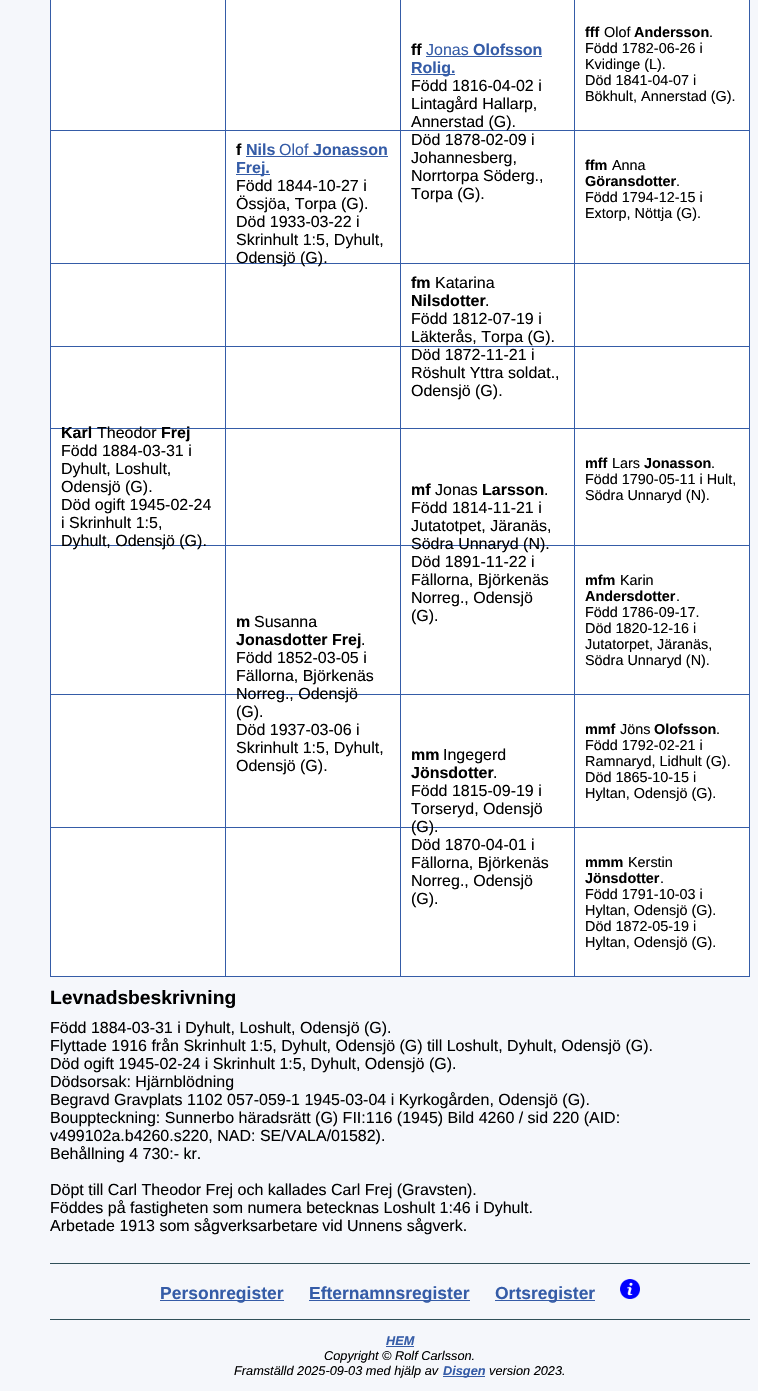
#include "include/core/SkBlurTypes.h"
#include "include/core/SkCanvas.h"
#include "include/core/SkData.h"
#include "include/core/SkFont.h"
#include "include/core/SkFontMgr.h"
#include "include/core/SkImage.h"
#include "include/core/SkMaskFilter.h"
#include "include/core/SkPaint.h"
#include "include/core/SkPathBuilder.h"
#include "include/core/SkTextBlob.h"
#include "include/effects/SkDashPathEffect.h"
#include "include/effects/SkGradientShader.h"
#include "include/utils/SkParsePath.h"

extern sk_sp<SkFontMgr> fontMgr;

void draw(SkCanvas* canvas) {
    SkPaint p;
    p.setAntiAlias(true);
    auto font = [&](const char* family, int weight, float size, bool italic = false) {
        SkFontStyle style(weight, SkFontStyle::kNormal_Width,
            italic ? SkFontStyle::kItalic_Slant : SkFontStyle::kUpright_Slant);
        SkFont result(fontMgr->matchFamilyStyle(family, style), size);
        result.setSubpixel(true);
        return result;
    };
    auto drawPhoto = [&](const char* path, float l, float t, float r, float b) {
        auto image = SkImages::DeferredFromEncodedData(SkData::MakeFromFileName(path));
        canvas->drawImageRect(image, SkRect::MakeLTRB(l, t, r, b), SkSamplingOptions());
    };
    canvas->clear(0xFFF5F7FB);
    {
        const struct { float l, t, r, b; SkColor color; } items[] = {
            {749, 0, 750, 977, 0xFF355CA7},
            {50, 976, 750, 977, 0xFF355CA7},
            {50, 0, 51, 977, 0xFF355CA7},
            {226, 0, 400, 428, 0xFFFFFFFF},
        };
        for (auto [l, t, r, b, color] : items) {
            p.setColor(color);
            canvas->drawRect(SkRect::MakeLTRB(l, t, r, b), p);
        }
    }
    auto font1 = font("Liberation Sans", 700, 16);
    p.setColor(0xFF000000);
    canvas->drawString("f", 236, 155, font1, p);
    p.setColor(0xFF355CA7);
    canvas->drawString("Nils", 246, 155, font1, p);
    auto font2 = font("Liberation Sans", 400, 16);
    canvas->drawString("Olof", 279, 155, font2, p);
    canvas->drawString("Jonasson", 313, 155, font1, p);
    canvas->drawRect(SkRect::MakeLTRB(246, 156, 388, 157), p);
    canvas->drawRect(SkRect::MakeLTRB(236, 174, 270, 175), p);
    canvas->drawString("Frej.", 236, 173, font1, p);
    p.setColor(0xFF000000);
    {
        const struct { const char* s; float x, y; } items[] = {
            {"Född 1844-10-27 i", 236, 191},
            {"Össjöa, Torpa (G).", 236, 209},
            {"Död 1933-03-22 i", 236, 227},
            {"Skrinhult 1:5, Dyhult,", 236, 245},
        };
        for (auto [s, x, y] : items) {
            canvas->drawString(s, x, y, font2, p);
        }
    }
    p.setColor(0xFFFFFFFF);
    canvas->drawRect(SkRect::MakeLTRB(51, 0, 225, 976), p);
    p.setColor(0xFF355CA7);
    canvas->drawRect(SkRect::MakeLTRB(50, 263, 750, 264), p);
    p.setColor(0xFF000000);
    canvas->drawString("Odensjö (G).", 236, 263, font2, p);
    p.setColor(0xFFFFFFFF);
    canvas->drawRect(SkRect::MakeLTRB(401, 0, 574, 263), p);
    p.setColor(0xFF000000);
    canvas->drawString("ff", 411, 55, font1, p);
    p.setColor(0xFF355CA7);
    canvas->drawString("Jonas", 426, 55, font2, p);
    canvas->drawRect(SkRect::MakeLTRB(426, 56, 542, 57), p);
    canvas->drawString("Olofsson", 473, 55, font1, p);
    canvas->drawRect(SkRect::MakeLTRB(411, 74, 455, 75), p);
    canvas->drawString("Rolig.", 411, 73, font1, p);
    p.setColor(0xFF000000);
    canvas->drawString("Född 1816-04-02 i", 411, 91, font2, p);
    canvas->drawString("Lintagård Hallarp,", 411, 109, font2, p);
    p.setColor(0xFF355CA7);
    canvas->drawRect(SkRect::MakeLTRB(50, 130, 750, 131), p);
    p.setColor(0xFF000000);
    {
        const struct { const char* s; float x, y; } items[] = {
            {"Annerstad (G).", 411, 127},
            {"Död 1878-02-09 i", 411, 145},
            {"Johannesberg,", 411, 163},
            {"Norrtorpa Söderg.,", 411, 181},
            {"Torpa (G).", 411, 199},
        };
        for (auto [s, x, y] : items) {
            canvas->drawString(s, x, y, font2, p);
        }
    }
    p.setColor(0xFFFFFFFF);
    canvas->drawRect(SkRect::MakeLTRB(575, 0, 749, 130), p);
    auto font3 = font("Liberation Sans", 700, 14.4f);
    p.setColor(0xFF000000);
    canvas->drawString("fff", 585, 37, font3, p);
    auto font4 = font("Liberation Sans", 400, 14.4f);
    canvas->drawString("Olof", 604, 37, font4, p);
    canvas->drawString("Andersson", 634, 37, font3, p);
    {
        const struct { const char* s; float x, y; } items[] = {
            {".", 709, 37},
            {"Född 1782-06-26 i", 585, 53},
            {"Kvidinge (L).", 585, 69},
            {"Död 1841-04-07 i", 585, 85},
            {"Bökhult, Annerstad (G).", 585, 101},
        };
        for (auto [s, x, y] : items) {
            canvas->drawString(s, x, y, font4, p);
        }
    }
    p.setColor(0xFF355CA7);
    canvas->drawRect(SkRect::MakeLTRB(50, 428, 750, 429), p);
    p.setColor(0xFF000000);
    canvas->drawString("Karl", 61, 438, font1, p);
    canvas->drawString("Theodor", 97, 438, font2, p);
    canvas->drawString("Frej", 161, 438, font1, p);
    {
        const struct { const char* s; float x, y; } items[] = {
            {"Född 1884-03-31 i", 61, 456},
            {"Dyhult, Loshult,", 61, 474},
            {"Odensjö (G).", 61, 492},
            {"Död ogift 1945-02-24", 61, 510},
            {"i Skrinhult 1:5,", 61, 528},
        };
        for (auto [s, x, y] : items) {
            canvas->drawString(s, x, y, font2, p);
        }
    }
    {
        const struct { float l, t, r, b; SkColor color; } items[] = {
            {401, 429, 574, 694, 0xFFFFFFFF},
            {226, 429, 400, 976, 0xFFFFFFFF},
            {50, 545, 750, 546, 0xFF355CA7},
        };
        for (auto [l, t, r, b, color] : items) {
            p.setColor(color);
            canvas->drawRect(SkRect::MakeLTRB(l, t, r, b), p);
        }
    }
    p.setColor(0xFF000000);
    canvas->drawString("Dyhult, Odensjö (G).", 61, 546, font2, p);
    p.setColor(0xFFFFFFFF);
    canvas->drawRect(SkRect::MakeLTRB(575, 131, 749, 263), p);
    p.setColor(0xFF000000);
    canvas->drawString("ffm", 585, 170, font3, p);
    canvas->drawString("Anna", 612, 170, font4, p);
    canvas->drawString("Göransdotter", 585, 186, font3, p);
    {
        const struct { const char* s; float x, y; } items[] = {
            {".", 676, 186},
            {"Född 1794-12-15 i", 585, 202},
            {"Extorp, Nöttja (G).", 585, 218},
        };
        for (auto [s, x, y] : items) {
            canvas->drawString(s, x, y, font4, p);
        }
    }
    p.setColor(0xFFFFFFFF);
    canvas->drawRect(SkRect::MakeLTRB(401, 264, 574, 428), p);
    p.setColor(0xFF000000);
    canvas->drawString("fm", 411, 288, font1, p);
    canvas->drawString("Katarina", 435, 288, font2, p);
    canvas->drawString("Nilsdotter", 411, 306, font1, p);
    {
        const struct { const char* s; float x, y; } items[] = {
            {".", 485, 306},
            {"Född 1812-07-19 i", 411, 324},
            {"Läkterås, Torpa (G).", 411, 342},
            {"Död 1872-11-21 i", 411, 360},
            {"Röshult Yttra soldat.,", 411, 378},
            {"Odensjö (G).", 411, 396},
        };
        for (auto [s, x, y] : items) {
            canvas->drawString(s, x, y, font2, p);
        }
    }
    {
        const struct { float l, t, r, b; SkColor color; } items[] = {
            {575, 264, 749, 346, 0xFFFFFFFF},
            {50, 346, 750, 347, 0xFF355CA7},
            {575, 347, 749, 428, 0xFFFFFFFF},
        };
        for (auto [l, t, r, b, color] : items) {
            p.setColor(color);
            canvas->drawRect(SkRect::MakeLTRB(l, t, r, b), p);
        }
    }
    p.setColor(0xFF000000);
    canvas->drawString("mf", 411, 495, font1, p);
    canvas->drawString("Jonas", 435, 495, font2, p);
    canvas->drawString("Larsson", 482, 495, font1, p);
    {
        const struct { const char* s; float x, y; } items[] = {
            {".", 544, 495},
            {"Född 1814-11-21 i", 411, 513},
            {"Jutatotpet, Järanäs,", 411, 531},
            {"Södra Unnaryd (N).", 411, 549},
            {"Död 1891-11-22 i", 411, 567},
            {"Fällorna, Björkenäs", 411, 585},
            {"Norreg., Odensjö", 411, 603},
            {"(G).", 411, 621},
        };
        for (auto [s, x, y] : items) {
            canvas->drawString(s, x, y, font2, p);
        }
    }
    p.setColor(0xFFFFFFFF);
    canvas->drawRect(SkRect::MakeLTRB(575, 429, 749, 545), p);
    p.setColor(0xFF000000);
    canvas->drawString("mff", 585, 468, font3, p);
    canvas->drawString("Lars", 612, 468, font4, p);
    canvas->drawString("Jonasson", 644, 468, font3, p);
    {
        const struct { const char* s; float x, y; } items[] = {
            {".", 711, 468},
            {"Född 1790-05-11 i Hult,", 585, 484},
            {"Södra Unnaryd (N).", 585, 500},
        };
        for (auto [s, x, y] : items) {
            canvas->drawString(s, x, y, font4, p);
        }
    }
    {
        const struct { float l, t, r, b; SkColor color; } items[] = {
            {50, 694, 750, 695, 0xFF355CA7},
            {401, 695, 574, 976, 0xFFFFFFFF},
            {50, 827, 750, 828, 0xFF355CA7},
            {225, 0, 226, 977, 0xFF355CA7},
        };
        for (auto [l, t, r, b, color] : items) {
            p.setColor(color);
            canvas->drawRect(SkRect::MakeLTRB(l, t, r, b), p);
        }
    }
    p.setColor(0xFF000000);
    canvas->drawString("m", 236, 627, font1, p);
    canvas->drawString("Susanna", 254, 627, font2, p);
    canvas->drawString("Jonasdotter Frej", 236, 645, font1, p);
    {
        const struct { const char* s; float x, y; } items[] = {
            {".", 361, 645},
            {"Född 1852-03-05 i", 236, 663},
            {"Fällorna, Björkenäs", 236, 681},
            {"Norreg., Odensjö", 236, 699},
            {"(G).", 236, 717},
            {"Död 1937-03-06 i", 236, 735},
            {"Skrinhult 1:5, Dyhult,", 236, 753},
            {"Odensjö (G).", 236, 771},
        };
        for (auto [s, x, y] : items) {
            canvas->drawString(s, x, y, font2, p);
        }
    }
    p.setColor(0xFFFFFFFF);
    canvas->drawRect(SkRect::MakeLTRB(575, 546, 749, 694), p);
    p.setColor(0xFF000000);
    canvas->drawString("mfm", 585, 585, font3, p);
    canvas->drawString("Karin", 620, 585, font4, p);
    canvas->drawString("Andersdotter", 585, 601, font3, p);
    {
        const struct { const char* s; float x, y; } items[] = {
            {".", 676, 601},
            {"Född 1786-09-17.", 585, 617},
            {"Död 1820-12-16 i", 585, 633},
            {"Jutatorpet, Järanäs,", 585, 649},
            {"Södra Unnaryd (N).", 585, 665},
        };
        for (auto [s, x, y] : items) {
            canvas->drawString(s, x, y, font4, p);
        }
    }
    p.setColor(0xFF355CA7);
    canvas->drawRect(SkRect::MakeLTRB(400, 0, 401, 977), p);
    p.setColor(0xFF000000);
    canvas->drawString("mm", 411, 760, font1, p);
    canvas->drawString("Ingegerd", 443, 760, font2, p);
    canvas->drawString("Jönsdotter", 411, 778, font1, p);
    {
        const struct { const char* s; float x, y; } items[] = {
            {".", 493, 778},
            {"Född 1815-09-19 i", 411, 796},
            {"Torseryd, Odensjö", 411, 814},
            {"(G).", 411, 832},
            {"Död 1870-04-01 i", 411, 850},
            {"Fällorna, Björkenäs", 411, 868},
            {"Norreg., Odensjö", 411, 886},
            {"(G).", 411, 904},
        };
        for (auto [s, x, y] : items) {
            canvas->drawString(s, x, y, font2, p);
        }
    }
    p.setColor(0xFFFFFFFF);
    canvas->drawRect(SkRect::MakeLTRB(575, 695, 749, 827), p);
    p.setColor(0xFF000000);
    canvas->drawString("mmf", 585, 734, font3, p);
    canvas->drawString("Jöns", 620, 734, font4, p);
    canvas->drawString("Olofsson", 654, 734, font3, p);
    {
        const struct { const char* s; float x, y; } items[] = {
            {".", 716, 734},
            {"Född 1792-02-21 i", 585, 750},
            {"Ramnaryd, Lidhult (G).", 585, 766},
            {"Död 1865-10-15 i", 585, 782},
            {"Hyltan, Odensjö (G).", 585, 798},
        };
        for (auto [s, x, y] : items) {
            canvas->drawString(s, x, y, font4, p);
        }
    }
    p.setColor(0xFFFFFFFF);
    canvas->drawRect(SkRect::MakeLTRB(575, 828, 749, 976), p);
    p.setColor(0xFF355CA7);
    canvas->drawRect(SkRect::MakeLTRB(574, 0, 575, 977), p);
    p.setColor(0xFF000000);
    canvas->drawString("mmm", 585, 867, font3, p);
    canvas->drawString("Kerstin", 628, 867, font4, p);
    canvas->drawString("Jönsdotter", 585, 883, font3, p);
    {
        const struct { const char* s; float x, y; } items[] = {
            {".", 660, 883},
            {"Född 1791-10-03 i", 585, 899},
            {"Hyltan, Odensjö (G).", 585, 915},
            {"Död 1872-05-19 i", 585, 931},
            {"Hyltan, Odensjö (G).", 585, 947},
        };
        for (auto [s, x, y] : items) {
            canvas->drawString(s, x, y, font4, p);
        }
    }
    auto font5 = font("Liberation Sans", 700, 19.25f);
    canvas->drawString("Levnadsbeskrivning", 50, 1004, font5, p);
    {
        const struct { const char* s; float x, y; } items[] = {
            {"Född 1884-03-31 i Dyhult, Loshult, Odensjö (G).", 50, 1033},
            {"Flyttade 1916 från Skrinhult 1:5, Dyhult, Odensjö (G) till Loshult, Dyhult, Odensjö (G).", 50, 1051},
            {"Död ogift 1945-02-24 i Skrinhult 1:5, Dyhult, Odensjö (G).", 50, 1069},
            {"Dödsorsak: Hjärnblödning", 50, 1087},
            {"Begravd Gravplats 1102 057-059-1 1945-03-04 i Kyrkogården, Odensjö (G).", 50, 1105},
            {"Bouppteckning: Sunnerbo häradsrätt (G) FII:116 (1945) Bild 4260 / sid 220 (AID:", 50, 1123},
            {"v499102a.b4260.s220, NAD: SE/VALA/01582).", 50, 1141},
            {"Behållning 4 730:- kr.", 50, 1159},
            {"Döpt till Carl Theodor Frej och kallades Carl Frej (Gravsten).", 50, 1195},
            {"Föddes på fastigheten som numera betecknas Loshult 1:46 i Dyhult.", 50, 1213},
            {"Arbetade 1913 som sågverksarbetare vid Unnens sågverk.", 50, 1231},
        };
        for (auto [s, x, y] : items) {
            canvas->drawString(s, x, y, font2, p);
        }
    }
    {
        const struct { float l, t, r, b; SkColor color; } items[] = {
            {50, 1263, 750, 1264, 0xFF305059},
            {50, 1319, 750, 1320, 0xFF305059},
            {160, 1300, 284, 1301, 0xFF355CA7},
        };
        for (auto [l, t, r, b, color] : items) {
            p.setColor(color);
            canvas->drawRect(SkRect::MakeLTRB(l, t, r, b), p);
        }
    }
    auto font6 = font("Liberation Sans", 700, 17.5f);
    canvas->drawString("Personregister", 160, 1299, font6, p);
    canvas->drawRect(SkRect::MakeLTRB(309, 1300, 470, 1301), p);
    canvas->drawString("Efternamnsregister", 309, 1299, font6, p);
    canvas->drawRect(SkRect::MakeLTRB(495, 1300, 595, 1301), p);
    canvas->drawString("Ortsregister", 495, 1299, font6, p);
    drawPhoto("media/1.png", 620, 1279, 640, 1299);
    auto font7 = font("Liberation Sans", 700, 12.75f, true);
    canvas->drawString("HEM", 386, 1345, font7, p);
    canvas->drawRect(SkRect::MakeLTRB(386, 1346, 414, 1347), p);
    auto font8 = font("Liberation Sans", 400, 12.75f, true);
    p.setColor(0xFF000000);
    canvas->drawString("Copyright © Rolf Carlsson.", 324, 1360, font8, p);
    canvas->drawString("Framställd 2025-09-03 med hjälp av", 234, 1375, font8, p);
    p.setColor(0xFF355CA7);
    canvas->drawRect(SkRect::MakeLTRB(443, 1376, 485, 1377), p);
    canvas->drawString("Disgen", 443, 1375, font7, p);
    p.setColor(0xFF000000);
    canvas->drawString("version 2023.", 489, 1375, font8, p);
}
